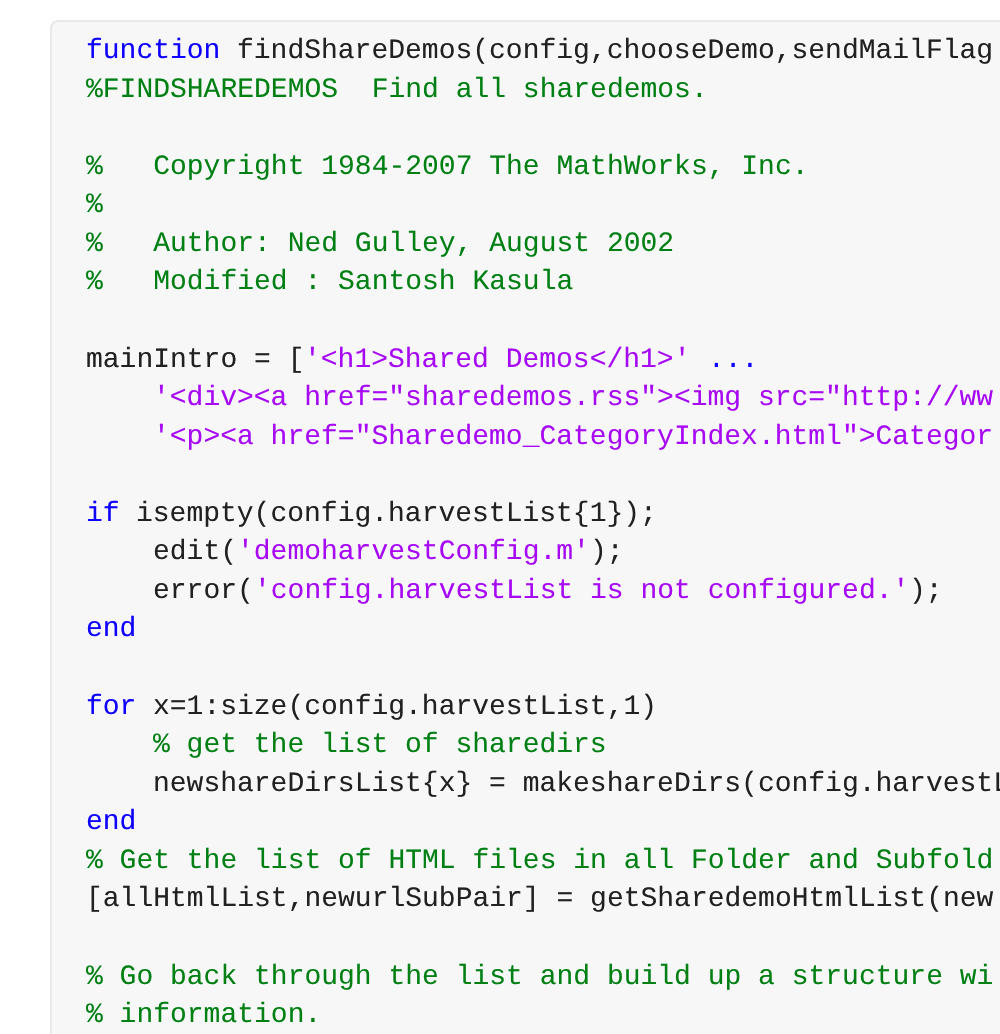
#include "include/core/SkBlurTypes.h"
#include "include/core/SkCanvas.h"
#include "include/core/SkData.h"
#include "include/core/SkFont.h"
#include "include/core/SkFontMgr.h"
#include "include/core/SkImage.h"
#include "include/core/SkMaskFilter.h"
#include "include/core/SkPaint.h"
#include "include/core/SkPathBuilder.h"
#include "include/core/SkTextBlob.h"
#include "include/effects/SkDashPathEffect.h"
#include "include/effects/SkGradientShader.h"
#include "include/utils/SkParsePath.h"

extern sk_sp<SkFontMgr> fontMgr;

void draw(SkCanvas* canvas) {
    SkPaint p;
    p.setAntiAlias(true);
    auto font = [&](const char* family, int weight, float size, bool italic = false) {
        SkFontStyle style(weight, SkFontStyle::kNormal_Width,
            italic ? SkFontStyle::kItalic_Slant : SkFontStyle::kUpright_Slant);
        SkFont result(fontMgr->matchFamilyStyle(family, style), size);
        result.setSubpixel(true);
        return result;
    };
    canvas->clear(0xFFFFFFFF);
    p.setColor(0xFFF7F7F7);
    canvas->drawPath(SkPathBuilder().moveTo(58, 20).lineTo(1000, 20).lineTo(1000, 1034).lineTo(50, 1034).lineTo(50, 28).cubicTo(50, 23.5f, 53.5f, 20, 58, 20).close().detach(), p);
    p.setColor(0xFFE9E9E9);
    canvas->drawPath(SkPathBuilder(SkPathFillType::kEvenOdd).moveTo(58, 20).lineTo(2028, 20).cubicTo(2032, 20, 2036, 24, 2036, 28).lineTo(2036, 70).lineTo(50, 70).lineTo(50, 28).cubicTo(50, 24, 54, 20, 58, 20).close().moveTo(58, 22).lineTo(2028, 22).cubicTo(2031, 22, 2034, 25, 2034, 28).lineTo(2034, 70).lineTo(52, 70).lineTo(52, 28).cubicTo(52, 25, 55, 22, 58, 22).close().detach(), p);
    auto font1 = font("Liberation Mono", 400, 28);
    p.setColor(0xFF0E00FF);
    canvas->drawString("function", 86, 58, font1, p);
    p.setColor(0xFF212121);
    canvas->drawString("findShareDemos(config,chooseDemo,sendMailFlag", 237, 58, font1, p);
    p.setColor(0xFFE9E9E9);
    canvas->drawRect(SkRect::MakeLTRB(50, 70, 52, 1034), p);
    p.setColor(0xFF008013);
    {
        const struct { const char* s; float x, y; } items[] = {
            {"%FINDSHAREDEMOS  Find all sharedemos.", 86, 97},
            {"%   Copyright 1984-2007 The MathWorks, Inc.", 86, 174},
            {"%", 86, 212},
            {"%   Author: Ned Gulley, August 2002", 86, 251},
            {"%   Modified : Santosh Kasula", 86, 289},
        };
        for (auto [s, x, y] : items) {
            canvas->drawString(s, x, y, font1, p);
        }
    }
    p.setColor(0xFF212121);
    canvas->drawString("mainIntro = [", 86, 367, font1, p);
    p.setColor(0xFFA709F5);
    canvas->drawString("'<h1>Shared Demos</h1>'", 304, 367, font1, p);
    p.setColor(0xFF0E00FF);
    canvas->drawString("...", 708, 367, font1, p);
    p.setColor(0xFFA709F5);
    canvas->drawString("'<div><a href=\"sharedemos.rss\"><img src=\"http://ww", 153, 405, font1, p);
    canvas->drawString("'<p><a href=\"Sharedemo_CategoryIndex.html\">Categor", 153, 444, font1, p);
    p.setColor(0xFF0E00FF);
    canvas->drawString("if", 86, 521, font1, p);
    p.setColor(0xFF212121);
    canvas->drawString("isempty(config.harvestList{1});", 136, 521, font1, p);
    canvas->drawString("edit(", 153, 559, font1, p);
    p.setColor(0xFFA709F5);
    canvas->drawString("'demoharvestConfig.m'", 237, 559, font1, p);
    p.setColor(0xFF212121);
    canvas->drawString(");", 590, 559, font1, p);
    canvas->drawString("error(", 153, 598, font1, p);
    p.setColor(0xFFA709F5);
    canvas->drawString("'config.harvestList is not configured.'", 254, 598, font1, p);
    p.setColor(0xFF212121);
    canvas->drawString(");", 909, 598, font1, p);
    p.setColor(0xFF0E00FF);
    canvas->drawString("end", 86, 636, font1, p);
    canvas->drawString("for", 86, 714, font1, p);
    p.setColor(0xFF212121);
    canvas->drawString("x=1:size(config.harvestList,1)", 153, 714, font1, p);
    p.setColor(0xFF008013);
    canvas->drawString("% get the list of sharedirs", 153, 752, font1, p);
    p.setColor(0xFF212121);
    canvas->drawString("newshareDirsList{x} = makeshareDirs(config.harvestL", 153, 791, font1, p);
    p.setColor(0xFF0E00FF);
    canvas->drawString("end", 86, 829, font1, p);
    p.setColor(0xFF008013);
    canvas->drawString("% Get the list of HTML files in all Folder and Subfold", 86, 868, font1, p);
    p.setColor(0xFF212121);
    canvas->drawString("[allHtmlList,newurlSubPair] = getSharedemoHtmlList(new", 86, 906, font1, p);
    p.setColor(0xFF008013);
    canvas->drawString("% Go back through the list and build up a structure wi", 86, 984, font1, p);
    canvas->drawString("% information.", 86, 1022, font1, p);
}
